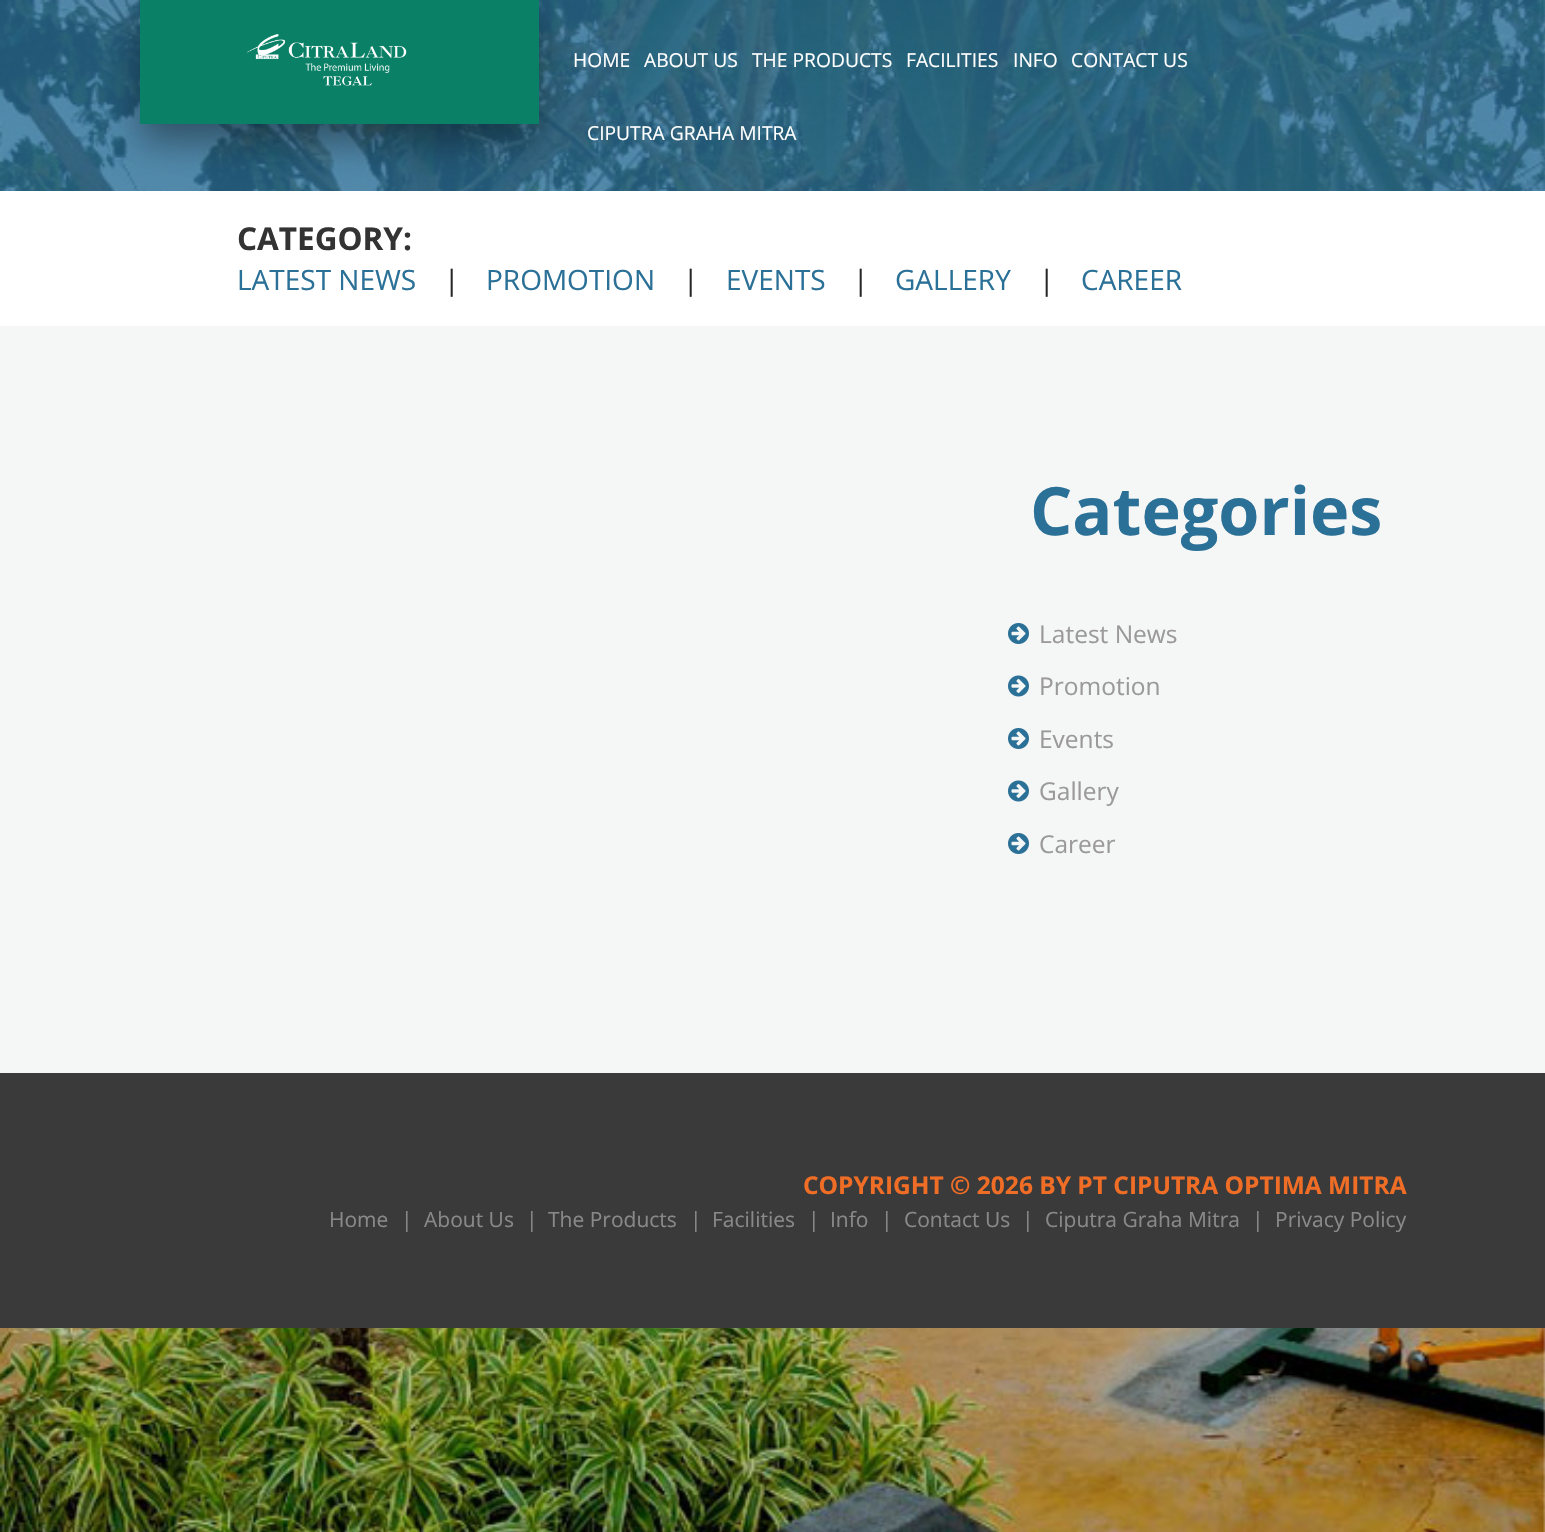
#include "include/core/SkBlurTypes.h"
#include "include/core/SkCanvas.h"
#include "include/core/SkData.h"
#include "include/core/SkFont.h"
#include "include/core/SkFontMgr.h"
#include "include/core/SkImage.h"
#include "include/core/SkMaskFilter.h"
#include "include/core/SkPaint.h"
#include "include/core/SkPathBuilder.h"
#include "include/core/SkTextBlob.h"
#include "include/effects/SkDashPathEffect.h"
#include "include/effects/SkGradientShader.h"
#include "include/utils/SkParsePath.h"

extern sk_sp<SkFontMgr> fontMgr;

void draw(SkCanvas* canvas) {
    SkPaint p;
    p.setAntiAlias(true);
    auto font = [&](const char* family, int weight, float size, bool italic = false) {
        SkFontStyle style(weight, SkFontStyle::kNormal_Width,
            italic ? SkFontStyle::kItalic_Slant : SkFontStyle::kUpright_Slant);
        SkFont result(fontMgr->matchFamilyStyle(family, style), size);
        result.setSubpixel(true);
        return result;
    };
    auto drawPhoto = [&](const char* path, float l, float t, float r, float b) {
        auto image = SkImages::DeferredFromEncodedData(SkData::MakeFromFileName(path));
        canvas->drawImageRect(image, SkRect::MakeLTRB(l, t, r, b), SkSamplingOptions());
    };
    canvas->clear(0xFFFFFFFF);
    drawPhoto("media/1.png", 0, 0, 1545, 1532);
    {
        const struct { float l, t, r, b; SkColor color; } items[] = {
            {0, 0, 1545, 191, 0xC72B7097},
            {0, 191, 140, 326, 0xFFFFFFFF},
            {140, 191, 1545, 326, 0xFFFFFFFF},
        };
        for (auto [l, t, r, b, color] : items) {
            p.setColor(color);
            canvas->drawRect(SkRect::MakeLTRB(l, t, r, b), p);
        }
    }
    p.setColor(0x66000000);
    p.setMaskFilter(SkMaskFilter::MakeBlur(kNormal_SkBlurStyle, 17.5f));
    canvas->drawRect(SkRect::MakeLTRB(140, 18, 539, 142), p);
    p.setMaskFilter(nullptr);
    p.setColor(0xFF0A8166);
    canvas->drawRect(SkRect::MakeLTRB(140, 0, 539, 124), p);
    drawPhoto("media/2.png", 247, 34, 407, 86);
    auto font1 = font("Open Sans", 400, 19.25f);
    p.setColor(0xFFFFFFFF);
    {
        const struct { const char* s; float x, y; } items[] = {
            {"HOME", 573, 67},
            {"ABOUT US", 644, 67},
            {"THE PRODUCTS", 752, 67},
            {"FACILITIES", 906, 67},
            {"INFO", 1013, 67},
            {"CONTACT US", 1071, 67},
            {"CIPUTRA GRAHA MITRA", 587, 140},
        };
        for (auto [s, x, y] : items) {
            canvas->drawString(s, x, y, font1, p);
        }
    }
    p.setColor(0xFFF5F6F6);
    canvas->drawRect(SkRect::MakeLTRB(0, 326, 1545, 1073), p);
    auto font2 = font("Open Sans", 700, 31.5f);
    p.setColor(0xFF333333);
    canvas->drawString("CATEGORY:", 237, 250, font2, p);
    auto font3 = font("Open Sans", 400, 28);
    p.setColor(0xFF2B7097);
    canvas->drawString("LATEST NEWS", 237, 290, font3, p);
    p.setColor(0xFF262626);
    canvas->drawString("|", 444, 290, font3, p);
    p.setColor(0xFF2B7097);
    canvas->drawString("PROMOTION", 486, 290, font3, p);
    p.setColor(0xFF262626);
    canvas->drawString("|", 683, 290, font3, p);
    p.setColor(0xFF2B7097);
    canvas->drawString("EVENTS", 726, 290, font3, p);
    p.setColor(0xFF262626);
    canvas->drawString("|", 853, 290, font3, p);
    p.setColor(0xFF2B7097);
    canvas->drawString("GALLERY", 895, 290, font3, p);
    p.setColor(0xFF262626);
    canvas->drawString("|", 1039, 290, font3, p);
    p.setColor(0xFF2B7097);
    canvas->drawString("CAREER", 1081, 290, font3, p);
    auto font4 = font("Open Sans", 700, 66.5f);
    canvas->drawString("Categories", 1030, 535, font4, p);
    drawPhoto("media/3.png", 1008, 623, 1029, 644);
    auto font5 = font("Open Sans", 400, 24.5f);
    p.setColor(0xFF9B9999);
    canvas->drawString("Latest News", 1039, 643, font5, p);
    drawPhoto("media/4.png", 1008, 675, 1029, 697);
    canvas->drawString("Promotion", 1039, 695, font5, p);
    drawPhoto("media/3.png", 1008, 728, 1029, 749);
    canvas->drawString("Events", 1039, 748, font5, p);
    drawPhoto("media/4.png", 1008, 780, 1029, 802);
    canvas->drawString("Gallery", 1039, 800, font5, p);
    drawPhoto("media/3.png", 1008, 833, 1029, 854);
    canvas->drawString("Career", 1039, 853, font5, p);
    p.setColor(0xFF3A3A3A);
    canvas->drawRect(SkRect::MakeLTRB(0, 1073, 140, 1328), p);
    canvas->drawRect(SkRect::MakeLTRB(140, 1073, 1545, 1328), p);
    auto font6 = font("Open Sans", 700, 24.5f);
    p.setColor(0xFFF06D26);
    canvas->drawString("COPYRIGHT © 2026 BY PT CIPUTRA OPTIMA MITRA", 803, 1194, font6, p);
    auto font7 = font("Open Sans", 400, 21);
    p.setColor(0xFF898989);
    {
        const struct { const char* s; float x, y; } items[] = {
            {"Home", 329, 1227},
            {"|", 401, 1227},
            {"About Us", 424, 1227},
            {"|", 526, 1227},
            {"The Products", 548, 1227},
            {"|", 690, 1227},
            {"Facilities", 712, 1227},
            {"|", 808, 1227},
            {"Info", 830, 1227},
            {"|", 881, 1227},
            {"Contact Us", 904, 1227},
            {"|", 1022, 1227},
            {"Ciputra Graha Mitra", 1045, 1227},
            {"|", 1252, 1227},
            {"Privacy Policy", 1275, 1227},
        };
        for (auto [s, x, y] : items) {
            canvas->drawString(s, x, y, font7, p);
        }
    }
}
